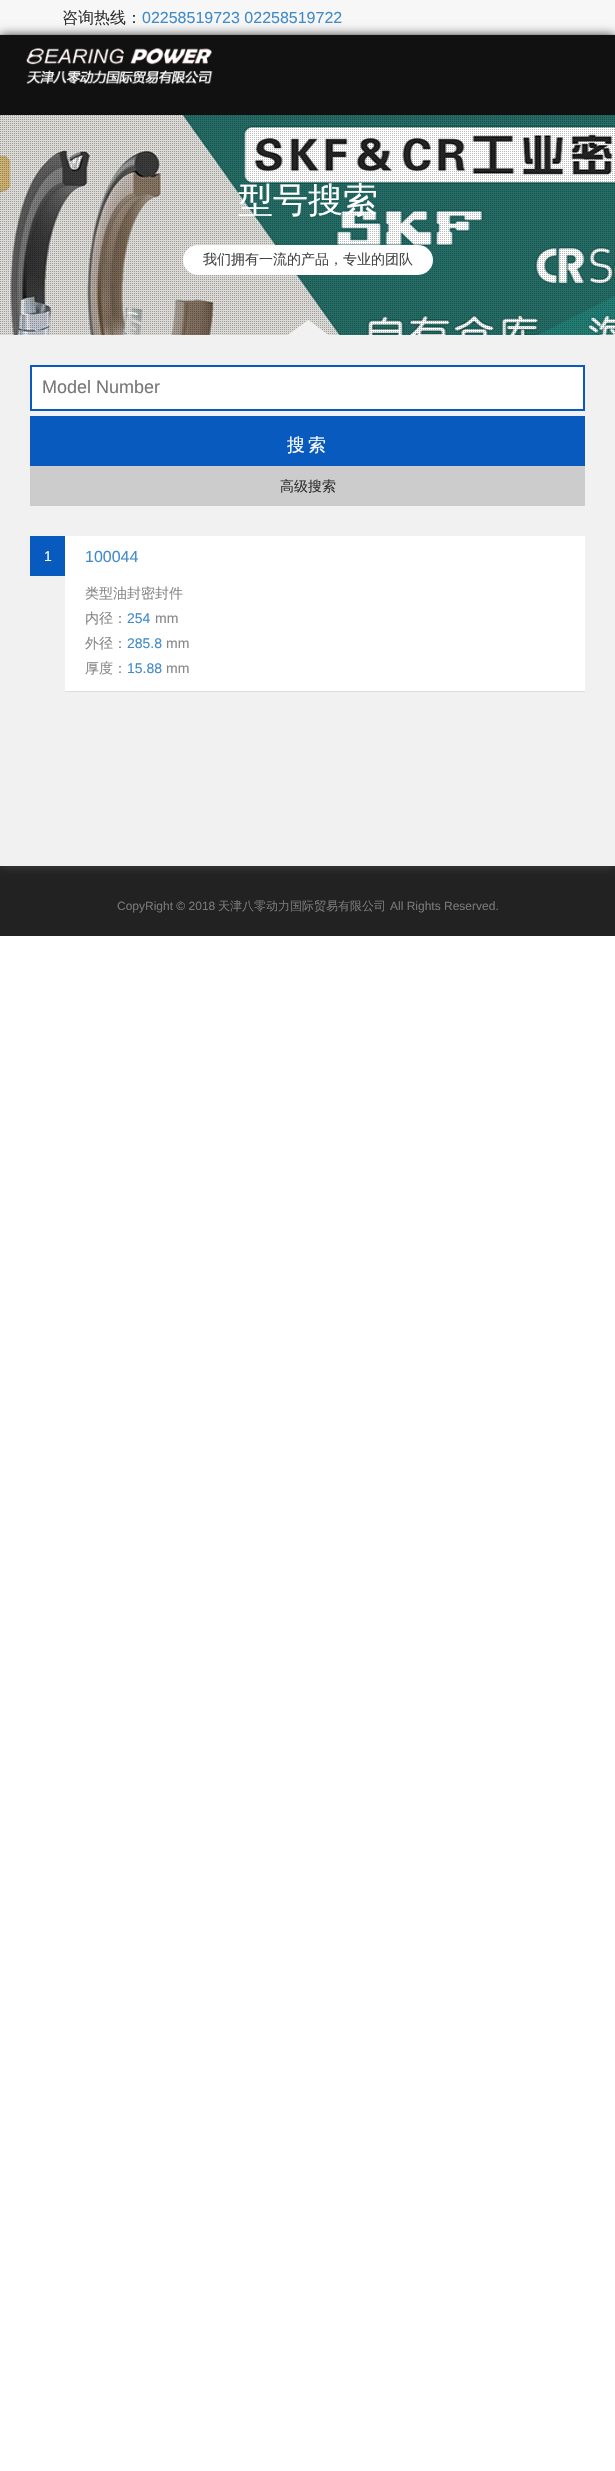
#include "include/core/SkBlurTypes.h"
#include "include/core/SkCanvas.h"
#include "include/core/SkData.h"
#include "include/core/SkFont.h"
#include "include/core/SkFontMgr.h"
#include "include/core/SkImage.h"
#include "include/core/SkMaskFilter.h"
#include "include/core/SkPaint.h"
#include "include/core/SkPathBuilder.h"
#include "include/core/SkTextBlob.h"
#include "include/effects/SkDashPathEffect.h"
#include "include/effects/SkGradientShader.h"
#include "include/utils/SkParsePath.h"

extern sk_sp<SkFontMgr> fontMgr;

void draw(SkCanvas* canvas) {
    SkPaint p;
    p.setAntiAlias(true);
    auto font = [&](const char* family, int weight, float size, bool italic = false) {
        SkFontStyle style(weight, SkFontStyle::kNormal_Width,
            italic ? SkFontStyle::kItalic_Slant : SkFontStyle::kUpright_Slant);
        SkFont result(fontMgr->matchFamilyStyle(family, style), size);
        result.setSubpixel(true);
        return result;
    };
    auto drawTracked = [&](const char* s, float x, float y, const SkFont& font, const SkPaint& ink, float letter, float word) {
        std::vector<SkGlyphID> glyphs(font.countText(s, strlen(s), SkTextEncoding::kUTF8));
        std::vector<float> xs(glyphs.size());
        font.textToGlyphs(s, strlen(s), SkTextEncoding::kUTF8, glyphs);
        font.getXPos(glyphs, xs, x);
        float extra = 0;
        for (size_t i = 0; i < glyphs.size(); i++) {
            xs[i] += extra;
            extra += letter + word * (glyphs[i] == font.unicharToGlyph(' '));
        }
        canvas->drawTextBlob(SkTextBlob::MakeFromPosHGlyphs(glyphs, xs, y, font), 0, 0, ink);
    };
    auto drawPhoto = [&](const char* path, float l, float t, float r, float b) {
        auto image = SkImages::DeferredFromEncodedData(SkData::MakeFromFileName(path));
        canvas->drawImageRect(image, SkRect::MakeLTRB(l, t, r, b), SkSamplingOptions());
    };
    canvas->clear(0xFFFFFFFF);
    p.setColor(0xFFF7F7F7);
    canvas->drawRect(SkRect::MakeLTRB(0, 0, 615, 34), p);
    p.setColor(0xFFE5E5E5);
    canvas->drawRect(SkRect::MakeLTRB(0, 34, 615, 35), p);
    auto font1 = font("WenQuanYi Zen Hei", 500, 16);
    p.setColor(0xFF333333);
    canvas->drawString("咨询热线：", 62, 23, font1, p);
    auto font2 = font("Liberation Sans", 400, 16);
    p.setColor(0xFF428BCA);
    canvas->drawString("02258519723 02258519722", 142, 23, font2, p);
    p.setColor(0xFF222222);
    canvas->drawRect(SkRect::MakeLTRB(0, 866, 615, 936), p);
    p.setColor(0xFF444444);
    p.setMaskFilter(SkMaskFilter::MakeBlur(kNormal_SkBlurStyle, 5));
    canvas->drawRect(SkRect::MakeLTRB(0, 35, 615, 866), p);
    p.setMaskFilter(nullptr);
    p.setColor(0xFFF1F1F1);
    canvas->drawRect(SkRect::MakeLTRB(0, 335, 615, 866), p);
    p.setColor(0xFF111111);
    canvas->drawRect(SkRect::MakeLTRB(0, 35, 615, 115), p);
    drawPhoto("media/1.png", 26, 48, 213, 85);
    drawPhoto("media/2.png", 0, 115, 615, 335);
    drawPhoto("media/3.png", 0, 115, 615, 334);
    auto font3 = font("WenQuanYi Zen Hei", 500, 35);
    p.setColor(0xFFFFFFFF);
    canvas->drawString("型号搜索", 238, 212, font3, p);
    canvas->drawRoundRect(SkRect::MakeLTRB(183, 245, 433, 275), 15, 15, p);
    auto font4 = font("WenQuanYi Zen Hei", 500, 14);
    p.setColor(0xFF444444);
    canvas->drawString("我们拥有一流的产品，专业的团队", 203, 264, font4, p);
    drawPhoto("media/4.png", 288, 320, 328, 335);
    p.setColor(0xFFFFFFFF);
    canvas->drawRect(SkRect::MakeLTRB(31, 366, 584, 410), p);
    p.setStyle(SkPaint::kStroke_Style);
    p.setStrokeWidth(2);
    p.setColor(0xFF085ABF);
    canvas->drawRect(SkRect::MakeLTRB(31, 366, 584, 410), p);
    auto font5 = font("Liberation Sans", 400, 18);
    p.setStyle(SkPaint::kFill_Style);
    p.setColor(0xFF777777);
    canvas->drawString("Model Number", 42, 393, font5, p);
    p.setColor(0xFF085ABF);
    canvas->drawRect(SkRect::MakeLTRB(30, 416, 585, 466), p);
    auto font6 = font("WenQuanYi Zen Hei", 500, 18);
    p.setColor(0xFFFFFFFF);
    drawTracked("搜索", 287, 451, font6, p, 3, 0);
    p.setColor(0xFFCCCCCC);
    canvas->drawRect(SkRect::MakeLTRB(30, 466, 585, 506), p);
    p.setColor(0xFF333333);
    canvas->drawString("高级搜索", 280, 491, font4, p);
    p.setColor(0xFF085ABF);
    canvas->drawRect(SkRect::MakeLTRB(30, 536, 65, 576), p);
    auto font7 = font("Liberation Sans", 400, 14);
    p.setColor(0xFFFFFFFF);
    canvas->drawString("1", 44, 561, font7, p);
    canvas->drawRect(SkRect::MakeLTRB(65, 536, 585, 691), p);
    p.setColor(0xFFDEDEDE);
    canvas->drawRect(SkRect::MakeLTRB(65, 691, 585, 692), p);
    p.setColor(0xFF428BCA);
    canvas->drawString("100044", 85, 562, font2, p);
    p.setColor(0xFF888888);
    canvas->drawString("类型油封密封件", 85, 598, font4, p);
    canvas->drawString("内径：", 85, 623, font4, p);
    p.setColor(0xFF428BCA);
    canvas->drawString("254", 127, 623, font7, p);
    p.setColor(0xFF888888);
    canvas->drawString("mm", 155, 623, font7, p);
    canvas->drawString("外径：", 85, 648, font4, p);
    p.setColor(0xFF428BCA);
    canvas->drawString("285.8", 127, 648, font7, p);
    p.setColor(0xFF888888);
    canvas->drawString("mm", 166, 648, font7, p);
    canvas->drawString("厚度：", 85, 673, font4, p);
    p.setColor(0xFF428BCA);
    canvas->drawString("15.88", 127, 673, font7, p);
    p.setColor(0xFF888888);
    canvas->drawString("mm", 166, 673, font7, p);
    auto font8 = font("Liberation Sans", 400, 12);
    p.setColor(0xFF777777);
    canvas->drawString("CopyRight © 2018", 117, 910, font8, p);
    auto font9 = font("WenQuanYi Zen Hei", 500, 12);
    canvas->drawString("天津八零动力国际贸易有限公司", 218, 910, font9, p);
    canvas->drawString("All Rights Reserved.", 390, 910, font8, p);
}
